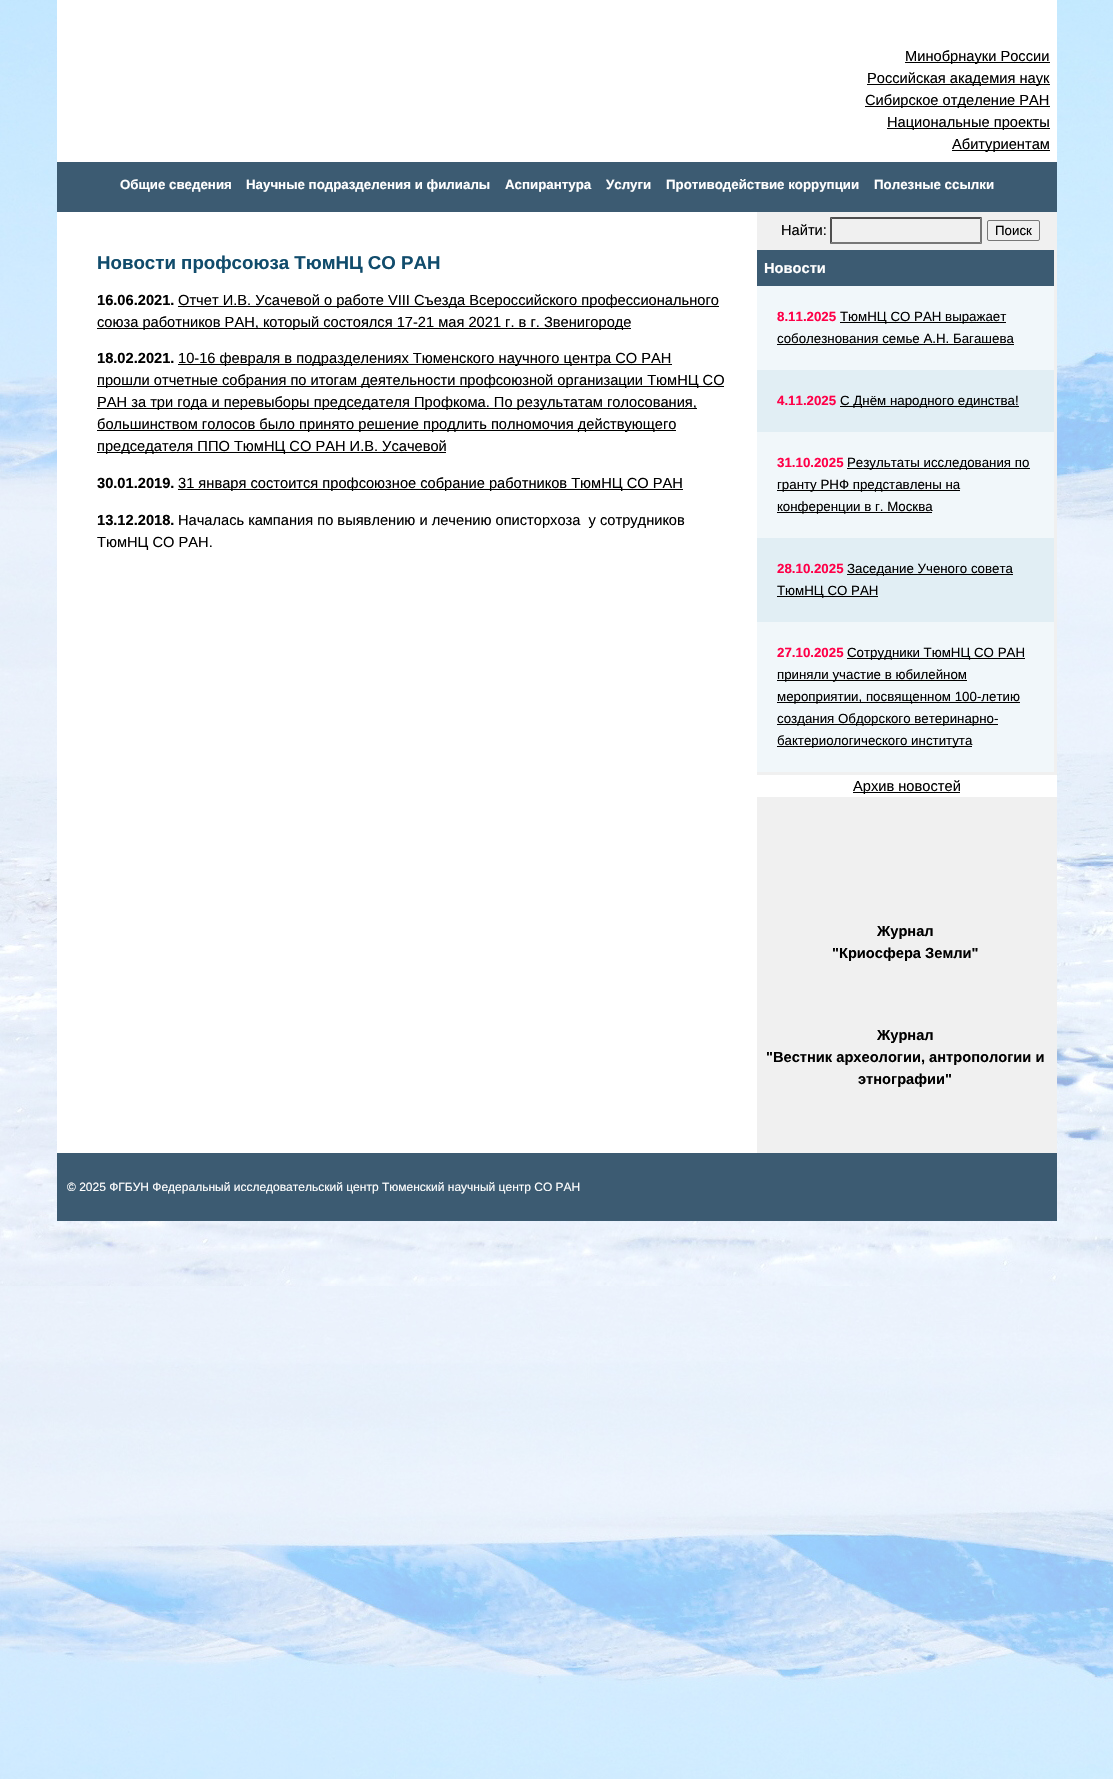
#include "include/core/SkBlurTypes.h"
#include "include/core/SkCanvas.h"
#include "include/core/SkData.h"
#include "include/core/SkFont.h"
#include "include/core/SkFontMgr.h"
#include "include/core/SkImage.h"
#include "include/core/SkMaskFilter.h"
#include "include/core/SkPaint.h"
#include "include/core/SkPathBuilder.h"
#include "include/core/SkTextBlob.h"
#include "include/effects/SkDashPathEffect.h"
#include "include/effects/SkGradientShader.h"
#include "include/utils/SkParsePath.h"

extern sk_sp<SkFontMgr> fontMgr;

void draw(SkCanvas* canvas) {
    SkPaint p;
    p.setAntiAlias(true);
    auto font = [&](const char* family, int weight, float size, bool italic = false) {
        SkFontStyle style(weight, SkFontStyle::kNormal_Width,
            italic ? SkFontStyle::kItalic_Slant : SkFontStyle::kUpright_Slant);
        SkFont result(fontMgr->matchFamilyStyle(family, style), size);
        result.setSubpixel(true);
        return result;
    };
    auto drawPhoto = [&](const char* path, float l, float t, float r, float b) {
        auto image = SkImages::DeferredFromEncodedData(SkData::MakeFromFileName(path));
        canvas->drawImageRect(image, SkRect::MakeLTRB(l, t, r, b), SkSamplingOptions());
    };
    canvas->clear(0xFFFFFFFF);
    drawPhoto("media/1.png", 0, 0, 1113, 1779);
    p.setColor(0xFFFFFFFF);
    canvas->drawRect(SkRect::MakeLTRB(57, 0, 1057, 1153), p);
    p.setColor(0xFF000000);
    canvas->drawRect(SkRect::MakeLTRB(905, 62, 1050, 63), p);
    auto font1 = font("Liberation Sans", 400, 14.65f);
    canvas->drawString("Минобрнауки России", 905, 61, font1, p);
    canvas->drawRect(SkRect::MakeLTRB(867, 84, 1050, 85), p);
    canvas->drawString("Российская академия наук", 867, 83, font1, p);
    canvas->drawRect(SkRect::MakeLTRB(865, 106, 1050, 107), p);
    canvas->drawString("Сибирское отделение РАН", 865, 105, font1, p);
    canvas->drawRect(SkRect::MakeLTRB(887, 128, 1050, 129), p);
    canvas->drawString("Национальные проекты", 887, 127, font1, p);
    canvas->drawRect(SkRect::MakeLTRB(952, 150, 1050, 151), p);
    canvas->drawString("Абитуриентам", 952, 149, font1, p);
    p.setColor(0xFF3C5B72);
    canvas->drawRect(SkRect::MakeLTRB(57, 162, 1057, 212), p);
    auto font2 = font("Liberation Sans", 700, 13.3f);
    p.setColor(0xFFFFFFFF);
    {
        const struct { const char* s; float x, y; } items[] = {
            {"Общие сведения", 120, 189},
            {"Научные подразделения и филиалы", 246, 189},
            {"Аспирантура", 505, 189},
            {"Услуги", 606, 189},
            {"Противодействие коррупции", 666, 189},
            {"Полезные ссылки", 874, 189},
        };
        for (auto [s, x, y] : items) {
            canvas->drawString(s, x, y, font2, p);
        }
    }
    auto font3 = font("Liberation Sans", 700, 18.7f);
    p.setColor(0xFF114C6C);
    canvas->drawString("Новости профсоюза ТюмНЦ СО РАН", 97, 269, font3, p);
    auto font4 = font("Liberation Sans", 700, 14.65f);
    p.setColor(0xFF000000);
    canvas->drawString("16.06.2021.", 97, 305, font4, p);
    canvas->drawRect(SkRect::MakeLTRB(178, 306, 719, 307), p);
    canvas->drawString("Отчет И.В. Усачевой о работе VIII Съезда Всероссийского профессионального", 178, 305, font1, p);
    canvas->drawRect(SkRect::MakeLTRB(97, 328, 631, 329), p);
    canvas->drawString("союза работников РАН, который состоялся 17-21 мая 2021 г. в г. Звенигороде", 97, 327, font1, p);
    canvas->drawString("18.02.2021.", 97, 363, font4, p);
    canvas->drawRect(SkRect::MakeLTRB(178, 364, 672, 365), p);
    canvas->drawString("10-16 февраля в подразделениях Тюменского научного центра СО РАН", 178, 363, font1, p);
    canvas->drawRect(SkRect::MakeLTRB(97, 386, 724, 387), p);
    canvas->drawString("прошли отчетные собрания по итогам деятельности профсоюзной организации ТюмНЦ СО", 97, 385, font1, p);
    canvas->drawRect(SkRect::MakeLTRB(97, 408, 697, 409), p);
    canvas->drawString("РАН за три года и перевыборы председателя Профкома. По результатам голосования,", 97, 407, font1, p);
    canvas->drawRect(SkRect::MakeLTRB(97, 430, 676, 431), p);
    canvas->drawString("большинством голосов было принято решение продлить полномочия действующего", 97, 429, font1, p);
    canvas->drawRect(SkRect::MakeLTRB(97, 452, 446, 453), p);
    canvas->drawString("председателя ППО ТюмНЦ СО РАН И.В. Усачевой", 97, 451, font1, p);
    canvas->drawString("30.01.2019.", 97, 488, font4, p);
    canvas->drawRect(SkRect::MakeLTRB(178, 489, 683, 490), p);
    canvas->drawString("31 января состоится профсоюзное собрание работников ТюмНЦ СО РАН", 178, 488, font1, p);
    canvas->drawString("13.12.2018.", 97, 525, font4, p);
    canvas->drawString("Началась кампания по выявлению и лечению описторхоза  у сотрудников", 178, 525, font1, p);
    canvas->drawString("ТюмНЦ СО РАН.", 97, 547, font1, p);
    p.setColor(0xFFF0F0F0);
    canvas->drawRect(SkRect::MakeLTRB(757, 212, 1057, 775), p);
    p.setColor(0xFF000000);
    canvas->drawString("Найти:", 781, 235, font1, p);
    p.setColor(0xFF4F4F4F);
    canvas->drawPath(SkPathBuilder().moveTo(830, 217).lineTo(982, 217).lineTo(980, 219).lineTo(832, 219).close().detach(), p);
    p.setColor(0xFF767676);
    canvas->drawPath(SkPathBuilder().moveTo(982, 217).lineTo(982, 244).lineTo(980, 242).lineTo(980, 219).close().detach(), p);
    canvas->drawPath(SkPathBuilder().moveTo(982, 244).lineTo(830, 244).lineTo(832, 242).lineTo(980, 242).close().detach(), p);
    p.setColor(0xFF4F4F4F);
    canvas->drawPath(SkPathBuilder().moveTo(830, 244).lineTo(830, 217).lineTo(832, 219).lineTo(832, 242).close().detach(), p);
    p.setStyle(SkPaint::kStroke_Style);
    p.setStrokeWidth(1);
    p.setColor(0xFF767676);
    canvas->drawRoundRect(SkRect::MakeLTRB(987.5f, 220.5f, 1039.5f, 240.5f), 1.5f, 1.5f, p);
    auto font5 = font("Liberation Sans", 400, 13.3f);
    p.setStyle(SkPaint::kFill_Style);
    p.setColor(0xFF000000);
    canvas->drawString("Поиск", 995, 235, font5, p);
    p.setColor(0xFF3C5B72);
    canvas->drawRect(SkRect::MakeLTRB(757, 250, 1054, 286), p);
    p.setColor(0xFFFFFFFF);
    canvas->drawString("Новости", 764, 273, font4, p);
    p.setColor(0xFFF1F7FA);
    canvas->drawRect(SkRect::MakeLTRB(757, 286, 1054, 370), p);
    p.setColor(0xFFFF0048);
    canvas->drawString("8.11.2025", 777, 321, font2, p);
    p.setColor(0xFF000000);
    canvas->drawRect(SkRect::MakeLTRB(840, 322, 1006, 323), p);
    canvas->drawString("ТюмНЦ СО РАН выражает", 840, 321, font5, p);
    canvas->drawString("соболезнования семье А.Н. Багашева", 777, 343, font5, p);
    canvas->drawRect(SkRect::MakeLTRB(777, 344, 1014, 345), p);
    p.setColor(0xFFE1EEF4);
    canvas->drawRect(SkRect::MakeLTRB(757, 370, 1054, 432), p);
    p.setColor(0xFFFF0048);
    canvas->drawString("4.11.2025", 777, 405, font2, p);
    p.setColor(0xFF000000);
    canvas->drawRect(SkRect::MakeLTRB(840, 406, 1019, 407), p);
    canvas->drawString("С Днём народного единства!", 840, 405, font5, p);
    p.setColor(0xFFF1F7FA);
    canvas->drawRect(SkRect::MakeLTRB(757, 432, 1054, 538), p);
    p.setColor(0xFFFF0048);
    canvas->drawString("31.10.2025", 777, 467, font2, p);
    p.setColor(0xFF000000);
    canvas->drawRect(SkRect::MakeLTRB(847, 468, 1030, 469), p);
    canvas->drawString("Результаты исследования по", 847, 467, font5, p);
    canvas->drawRect(SkRect::MakeLTRB(777, 490, 960, 491), p);
    canvas->drawString("гранту РНФ представлены на", 777, 489, font5, p);
    canvas->drawRect(SkRect::MakeLTRB(777, 512, 932, 513), p);
    canvas->drawString("конференции в г. Москва", 777, 511, font5, p);
    p.setColor(0xFFE1EEF4);
    canvas->drawRect(SkRect::MakeLTRB(757, 538, 1054, 622), p);
    p.setColor(0xFFFF0048);
    canvas->drawString("28.10.2025", 777, 573, font2, p);
    p.setColor(0xFF000000);
    canvas->drawRect(SkRect::MakeLTRB(847, 574, 1013, 575), p);
    canvas->drawString("Заседание Ученого совета", 847, 573, font5, p);
    canvas->drawRect(SkRect::MakeLTRB(777, 596, 878, 597), p);
    canvas->drawString("ТюмНЦ СО РАН", 777, 595, font5, p);
    p.setColor(0xFFF1F7FA);
    canvas->drawRect(SkRect::MakeLTRB(757, 622, 1054, 772), p);
    p.setColor(0xFFFF0048);
    canvas->drawString("27.10.2025", 777, 657, font2, p);
    p.setColor(0xFF000000);
    canvas->drawRect(SkRect::MakeLTRB(847, 658, 1025, 659), p);
    canvas->drawString("Сотрудники ТюмНЦ СО РАН", 847, 657, font5, p);
    canvas->drawRect(SkRect::MakeLTRB(777, 680, 967, 681), p);
    canvas->drawString("приняли участие в юбилейном", 777, 679, font5, p);
    canvas->drawRect(SkRect::MakeLTRB(777, 702, 1020, 703), p);
    canvas->drawString("мероприятии, посвященном 100-летию", 777, 701, font5, p);
    canvas->drawRect(SkRect::MakeLTRB(777, 724, 998, 725), p);
    canvas->drawString("создания Обдорского ветеринарно-", 777, 723, font5, p);
    canvas->drawRect(SkRect::MakeLTRB(777, 746, 972, 747), p);
    canvas->drawString("бактериологического института", 777, 745, font5, p);
    canvas->drawRect(SkRect::MakeLTRB(853, 792, 960, 793), p);
    canvas->drawString("Архив новостей", 853, 791, font1, p);
    p.setColor(0xFFF0F0F0);
    canvas->drawRect(SkRect::MakeLTRB(757, 797, 1057, 1153), p);
    p.setColor(0xFF000000);
    {
        const struct { const char* s; float x, y; } items[] = {
            {"Журнал", 877, 936},
            {"\"Криосфера Земли\"", 832, 958},
            {"Журнал", 877, 1040},
            {"\"Вестник археологии, антропологии и", 766, 1062},
            {"этнографии\"", 858, 1084},
        };
        for (auto [s, x, y] : items) {
            canvas->drawString(s, x, y, font4, p);
        }
    }
    p.setColor(0xFF3C5B72);
    canvas->drawRect(SkRect::MakeLTRB(57, 1153, 1057, 1221), p);
    auto font6 = font("Liberation Sans", 400, 12);
    p.setColor(0xFFFFFFFF);
    canvas->drawString("© 2025 ФГБУН Федеральный исследовательский центр Тюменский научный центр СО РАН", 67, 1191, font6, p);
}
